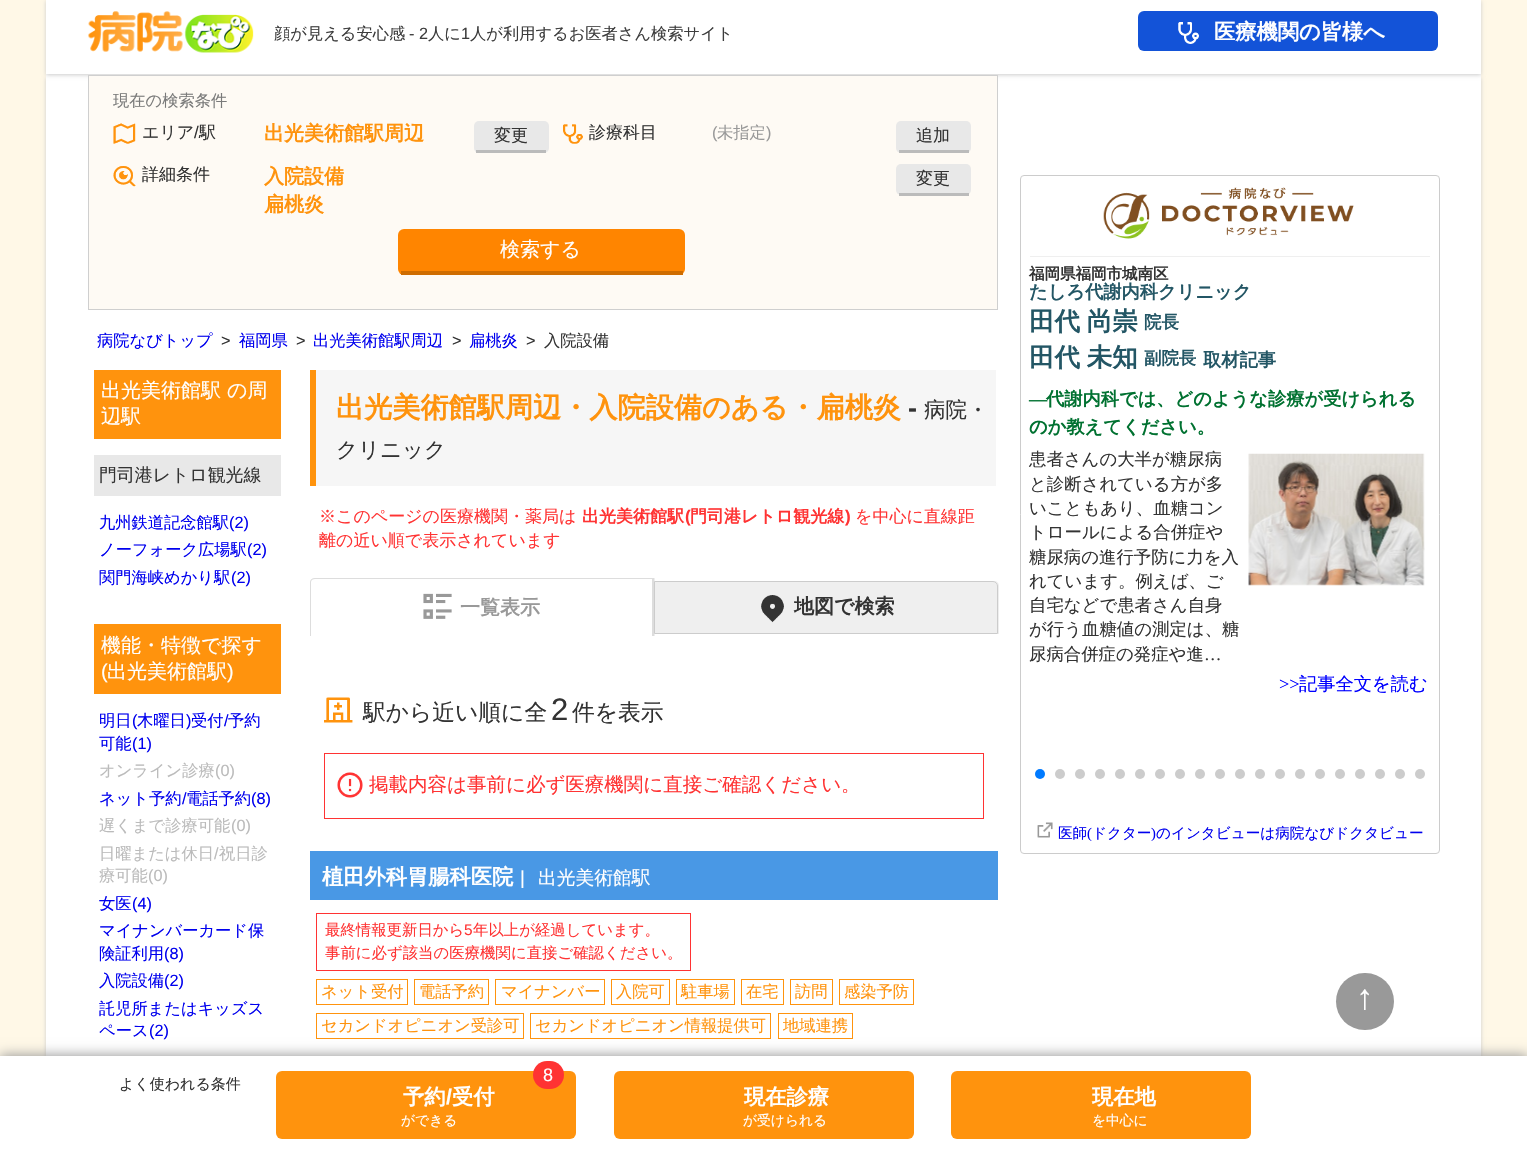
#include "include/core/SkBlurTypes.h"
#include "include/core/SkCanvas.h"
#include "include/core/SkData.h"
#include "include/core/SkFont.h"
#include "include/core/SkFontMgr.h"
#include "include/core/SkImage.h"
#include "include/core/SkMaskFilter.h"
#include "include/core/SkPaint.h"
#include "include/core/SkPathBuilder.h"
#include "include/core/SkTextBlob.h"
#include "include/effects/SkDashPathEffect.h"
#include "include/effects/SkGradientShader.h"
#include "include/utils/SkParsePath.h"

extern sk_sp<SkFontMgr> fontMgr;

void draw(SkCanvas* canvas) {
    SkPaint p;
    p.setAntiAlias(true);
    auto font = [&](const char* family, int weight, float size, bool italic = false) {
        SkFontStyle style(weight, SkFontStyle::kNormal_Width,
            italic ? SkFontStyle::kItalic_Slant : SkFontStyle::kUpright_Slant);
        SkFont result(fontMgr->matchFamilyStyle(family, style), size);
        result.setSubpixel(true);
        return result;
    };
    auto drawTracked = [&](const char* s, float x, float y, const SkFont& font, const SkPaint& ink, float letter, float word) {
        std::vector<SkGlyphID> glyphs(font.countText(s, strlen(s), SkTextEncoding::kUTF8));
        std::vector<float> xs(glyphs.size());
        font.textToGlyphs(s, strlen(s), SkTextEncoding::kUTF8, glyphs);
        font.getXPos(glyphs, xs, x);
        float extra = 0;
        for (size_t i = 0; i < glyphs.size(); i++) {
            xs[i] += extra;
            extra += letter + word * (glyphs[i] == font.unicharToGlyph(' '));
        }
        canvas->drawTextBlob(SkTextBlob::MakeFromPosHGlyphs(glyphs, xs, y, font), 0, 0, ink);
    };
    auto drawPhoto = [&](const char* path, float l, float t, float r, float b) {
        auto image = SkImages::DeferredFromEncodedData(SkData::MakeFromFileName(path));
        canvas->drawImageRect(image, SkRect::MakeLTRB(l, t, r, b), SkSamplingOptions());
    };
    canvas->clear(0xFFFFF8E7);
    p.setColor(0xFFCCCCCC);
    p.setMaskFilter(SkMaskFilter::MakeBlur(kNormal_SkBlurStyle, 2));
    canvas->drawRect(SkRect::MakeLTRB(46, 78, 1481, 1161), p);
    p.setMaskFilter(nullptr);
    p.setColor(0xFFFFFFFF);
    canvas->drawRect(SkRect::MakeLTRB(46, 74, 1481, 1056), p);
    p.setColor(0xFFCCCCCC);
    p.setMaskFilter(SkMaskFilter::MakeBlur(kNormal_SkBlurStyle, 2));
    canvas->drawRect(SkRect::MakeLTRB(46, 1, 1481, 75), p);
    p.setMaskFilter(nullptr);
    p.setColor(0xFFFFFFFF);
    canvas->drawRect(SkRect::MakeLTRB(46, 0, 1481, 74), p);
    drawPhoto("media/1.png", 88, 11, 254, 53);
    auto font1 = font("WenQuanYi Zen Hei", 500, 16.25f);
    p.setColor(0xFF3D3D3D);
    canvas->drawString("顔が見える安心感", 274, 39, font1, p);
    auto font2 = font("Liberation Sans", 400, 16.25f);
    canvas->drawString("- 2", 409, 39, font2, p);
    canvas->drawString("人に", 428, 39, font1, p);
    canvas->drawString("1", 461, 39, font2, p);
    canvas->drawString("人が利用するお医者さん検索サイト", 470, 39, font1, p);
    p.setColor(0xFF1353D8);
    canvas->drawRoundRect(SkRect::MakeLTRB(1138, 11, 1438, 51), 6, 6, p);
    drawPhoto("media/2.png", 1178, 22, 1199, 44);
    auto font3 = font("WenQuanYi Zen Hei", 700, 21.25f);
    p.setColor(0xFFFFFFFF);
    canvas->drawString("医療機関の皆様へ", 1214, 39, font3, p);
    p.setColor(0xFFFEFAF4);
    canvas->drawRect(SkRect::MakeLTRB(88.5f, 75.5f, 997.5f, 309.5f), p);
    p.setStyle(SkPaint::kStroke_Style);
    p.setStrokeWidth(1);
    p.setColor(0xFFCFCFCF);
    canvas->drawRect(SkRect::MakeLTRB(88.5f, 75.5f, 997.5f, 309.5f), p);
    p.setStyle(SkPaint::kFill_Style);
    p.setColor(0xFF7A7A7A);
    canvas->drawString("現在の検索条件", 113, 106, font1, p);
    drawPhoto("media/3.png", 113, 123, 136, 144);
    auto font4 = font("WenQuanYi Zen Hei", 500, 17);
    p.setColor(0xFF333333);
    canvas->drawString("エリア", 142, 138, font4, p);
    auto font5 = font("Liberation Sans", 400, 17);
    canvas->drawString("/", 194, 138, font5, p);
    canvas->drawString("駅", 199, 138, font4, p);
    auto font6 = font("WenQuanYi Zen Hei", 700, 20);
    p.setColor(0xFFFF930D);
    canvas->drawString("出光美術館駅周辺", 264, 140, font6, p);
    p.setColor(0xFFE8E8E8);
    canvas->drawRoundRect(SkRect::MakeLTRB(474, 121, 549, 153), 5, 5, p);
    p.setColor(0xFFBBBBBB);
    canvas->drawRect(SkRect::MakeLTRB(476, 150, 546, 153), p);
    p.setColor(0xFF333333);
    canvas->drawString("変更", 494, 141, font4, p);
    drawPhoto("media/4.png", 563, 124, 583, 144);
    canvas->drawString("診療科目", 589, 138, font4, p);
    p.setColor(0xFF999999);
    canvas->drawString("(", 712, 138, font2, p);
    canvas->drawString("未指定", 717, 138, font1, p);
    canvas->drawString(")", 766, 138, font2, p);
    p.setColor(0xFFE8E8E8);
    canvas->drawRoundRect(SkRect::MakeLTRB(896, 121, 971, 153), 5, 5, p);
    p.setColor(0xFFBBBBBB);
    canvas->drawRect(SkRect::MakeLTRB(899, 150, 969, 153), p);
    p.setColor(0xFF333333);
    canvas->drawString("追加", 916, 141, font4, p);
    drawPhoto("media/5.png", 113, 166, 136, 187);
    canvas->drawString("詳細条件", 142, 180, font4, p);
    p.setColor(0xFFFF930D);
    canvas->drawString("入院設備", 264, 183, font6, p);
    canvas->drawString("扁桃炎", 264, 211, font6, p);
    p.setColor(0xFFE8E8E8);
    canvas->drawRoundRect(SkRect::MakeLTRB(896, 164, 971, 195), 5, 5, p);
    p.setColor(0xFFBBBBBB);
    canvas->drawRect(SkRect::MakeLTRB(899, 193, 969, 196), p);
    p.setColor(0xFF333333);
    canvas->drawString("変更", 916, 184, font4, p);
    p.setColor(0xFFFF8500);
    canvas->drawRoundRect(SkRect::MakeLTRB(398, 229, 685, 275), 6, 6, p);
    p.setColor(0xFFCE6C00);
    canvas->drawRect(SkRect::MakeLTRB(401, 271, 683, 275), p);
    auto font7 = font("WenQuanYi Zen Hei", 500, 20);
    p.setColor(0xFFFFFFFF);
    canvas->drawString("検索する", 500, 256, font7, p);
    p.setColor(0xFF0000EE);
    canvas->drawString("病院なびトップ", 97, 346, font1, p);
    p.setColor(0xFF333333);
    canvas->drawString(">", 221, 346, font2, p);
    p.setColor(0xFF0000EE);
    canvas->drawString("福岡県", 239, 346, font1, p);
    p.setColor(0xFF333333);
    canvas->drawString(">", 296, 346, font2, p);
    p.setColor(0xFF0000EE);
    canvas->drawString("出光美術館駅周辺", 313, 346, font1, p);
    p.setColor(0xFF333333);
    canvas->drawString(">", 452, 346, font2, p);
    p.setColor(0xFF0000EE);
    canvas->drawString("扁桃炎", 469, 346, font1, p);
    p.setColor(0xFF333333);
    canvas->drawString(">", 526, 346, font2, p);
    canvas->drawString("入院設備", 544, 346, font1, p);
    p.setColor(0xFFFF930D);
    canvas->drawRect(SkRect::MakeLTRB(94, 370, 281, 439), p);
    p.setColor(0xFFFFFFFF);
    canvas->drawString("出光美術館駅 の周", 101, 397, font7, p);
    canvas->drawString("辺駅", 101, 423, font7, p);
    p.setColor(0xFFE8E8E8);
    canvas->drawRect(SkRect::MakeLTRB(94, 455, 281, 496), p);
    auto font8 = font("WenQuanYi Zen Hei", 500, 17.9f);
    p.setColor(0xFF333333);
    canvas->drawString("門司港レトロ観光線", 99, 481, font8, p);
    p.setColor(0xFF0000EE);
    canvas->drawString("九州鉄道記念館駅", 99, 528, font1, p);
    canvas->drawString("(2)", 229, 528, font2, p);
    canvas->drawString("ノーフォーク広場駅", 99, 555, font1, p);
    canvas->drawString("(2)", 247, 555, font2, p);
    canvas->drawString("関門海峡めかり駅", 99, 583, font1, p);
    canvas->drawString("(2)", 231, 583, font2, p);
    p.setColor(0xFFFF930D);
    canvas->drawRect(SkRect::MakeLTRB(94, 624, 281, 694), p);
    p.setColor(0xFFFFFFFF);
    canvas->drawString("機能・特徴で探す", 101, 652, font7, p);
    auto font9 = font("Liberation Sans", 400, 20);
    canvas->drawString("(", 101, 678, font9, p);
    canvas->drawString("出光美術館駅", 107, 678, font7, p);
    canvas->drawString(")", 227, 678, font9, p);
    p.setColor(0xFF0000EE);
    canvas->drawString("明日", 99, 726, font1, p);
    canvas->drawString("(", 132, 726, font2, p);
    canvas->drawString("木曜日", 137, 726, font1, p);
    canvas->drawString(")", 186, 726, font2, p);
    canvas->drawString("受付", 191, 726, font1, p);
    canvas->drawString("/", 224, 726, font2, p);
    canvas->drawString("予約", 228, 726, font1, p);
    canvas->drawString("可能", 99, 749, font1, p);
    canvas->drawString("(1)", 132, 749, font2, p);
    p.setColor(0xFFBBBBBB);
    canvas->drawString("オンライン診療", 99, 776, font1, p);
    canvas->drawString("(0)", 215, 776, font2, p);
    p.setColor(0xFF0000EE);
    canvas->drawString("ネット予約", 99, 804, font1, p);
    canvas->drawString("/", 182, 804, font2, p);
    canvas->drawString("電話予約", 186, 804, font1, p);
    canvas->drawString("(8)", 251, 804, font2, p);
    p.setColor(0xFFBBBBBB);
    canvas->drawString("遅くまで診療可能", 99, 831, font1, p);
    canvas->drawString("(0)", 231, 831, font2, p);
    canvas->drawString("日曜または休日", 99, 859, font1, p);
    canvas->drawString("/", 214, 859, font2, p);
    canvas->drawString("祝日診", 219, 859, font1, p);
    canvas->drawString("療可能", 99, 881, font1, p);
    canvas->drawString("(0)", 148, 881, font2, p);
    p.setColor(0xFF0000EE);
    canvas->drawString("女医", 99, 909, font1, p);
    canvas->drawString("(4)", 132, 909, font2, p);
    canvas->drawString("マイナンバーカード保", 99, 936, font1, p);
    canvas->drawString("険証利用", 99, 959, font1, p);
    canvas->drawString("(8)", 164, 959, font2, p);
    canvas->drawString("入院設備", 99, 986, font1, p);
    canvas->drawString("(2)", 164, 986, font2, p);
    canvas->drawString("託児所またはキッズス", 99, 1014, font1, p);
    canvas->drawString("ペース", 99, 1036, font1, p);
    canvas->drawString("(2)", 149, 1036, font2, p);
    p.setColor(0xFFF6F6F6);
    canvas->drawRect(SkRect::MakeLTRB(316, 370, 996, 486), p);
    p.setColor(0xFFFF930D);
    canvas->drawRect(SkRect::MakeLTRB(310, 370, 316, 486), p);
    auto font10 = font("WenQuanYi Zen Hei", 700, 28.15f);
    canvas->drawString("出光美術館駅周辺・入院設備のある・扁桃炎", 336, 417, font10, p);
    auto font11 = font("Liberation Sans", 700, 27);
    p.setColor(0xFF333333);
    canvas->drawString("-", 908, 417, font11, p);
    auto font12 = font("WenQuanYi Zen Hei", 500, 21.5f);
    canvas->drawString("病院・", 924, 417, font12, p);
    canvas->drawString("クリニック", 336, 457, font12, p);
    p.setColor(0xFFFF3333);
    canvas->drawString("※このページの医療機関・薬局は", 319, 522, font4, p);
    auto font13 = font("WenQuanYi Zen Hei", 700, 17);
    canvas->drawString("出光美術館駅", 582, 522, font13, p);
    auto font14 = font("Liberation Sans", 700, 17);
    canvas->drawString("(", 685, 522, font14, p);
    canvas->drawString("門司港レトロ観光線", 690, 522, font13, p);
    canvas->drawString(")", 845, 522, font14, p);
    canvas->drawString("を中心に直線距", 855, 522, font4, p);
    canvas->drawString("離の近い順で表示されています", 319, 546, font4, p);
    p.setColor(0xFFEEEEEE);
    canvas->drawRect(SkRect::MakeLTRB(654, 578, 655, 636), p);
    p.setColor(0xFFDDDDDD);
    canvas->drawPath(SkPathBuilder(SkPathFillType::kEvenOdd).moveTo(315, 578).lineTo(654, 578).lineTo(654, 636).lineTo(310, 636).lineTo(310, 582).cubicTo(310, 580, 312, 578, 315, 578).close().moveTo(315, 579).lineTo(652, 579).lineTo(652, 636).lineTo(311, 636).lineTo(311, 582).cubicTo(311, 580, 313, 579, 315, 579).close().detach(), p);
    drawPhoto("media/6.png", 423, 593, 452, 619);
    p.setColor(0xFF999999);
    canvas->drawString("一覧表示", 460, 614, font6, p);
    p.setColor(0xFFEEEEEE);
    canvas->drawPath(SkPathBuilder().moveTo(655, 581).lineTo(992, 581).cubicTo(995, 581, 998, 583, 998, 586).lineTo(998, 634).lineTo(655, 634).lineTo(999, 634).lineTo(999, 586).cubicTo(999, 583, 997, 581, 994, 581).close().detach(), p);
    p.setColor(0xFFEFEFEF);
    canvas->drawPath(SkPathBuilder().moveTo(654.5f, 581.5f).lineTo(993, 581.5f).cubicTo(995.5f, 581.5f, 997.5f, 583.5f, 997.5f, 586).lineTo(997.5f, 633.5f).lineTo(654.5f, 633.5f).close().detach(), p);
    p.setStyle(SkPaint::kStroke_Style);
    p.setColor(0xFFCCCCCC);
    canvas->drawPath(SkPathBuilder().moveTo(654.5f, 581.5f).lineTo(993, 581.5f).cubicTo(995.5f, 581.5f, 997.5f, 583.5f, 997.5f, 586).lineTo(997.5f, 633.5f).lineTo(654.5f, 633.5f).close().detach(), p);
    drawPhoto("media/7.png", 761, 595, 784, 623);
    p.setStyle(SkPaint::kFill_Style);
    p.setColor(0xFF333333);
    canvas->drawString("地図で検索", 794, 613, font6, p);
    drawPhoto("media/8.png", 324, 697, 353, 723);
    auto font15 = font("WenQuanYi Zen Hei", 500, 22.75f);
    canvas->drawString("駅から近い順に全", 363, 720, font15, p);
    auto font16 = font("Liberation Sans", 400, 31);
    canvas->drawString("2", 551, 720, font16, p);
    canvas->drawString("件を表示", 572, 720, font15, p);
    drawPhoto("media/9.png", 337, 772, 363, 798);
    p.setStyle(SkPaint::kStroke_Style);
    p.setColor(0xFFFF3333);
    canvas->drawRect(SkRect::MakeLTRB(324.5f, 753.5f, 983.5f, 818.5f), p);
    auto font17 = font("WenQuanYi Zen Hei", 500, 19.5f);
    p.setStyle(SkPaint::kFill_Style);
    canvas->drawString("掲載内容は事前に必ず医療機関に直接ご確認ください。", 369, 791, font17, p);
    p.setColor(0xFF4998E5);
    canvas->drawRect(SkRect::MakeLTRB(310, 851, 998, 900), p);
    p.setColor(0xFFFFFFFF);
    canvas->drawString("植田外科胃腸科医院", 322, 884, font3, p);
    auto font18 = font("Liberation Sans", 400, 18.75f);
    canvas->drawString("|", 520, 884, font18, p);
    auto font19 = font("WenQuanYi Zen Hei", 500, 18.75f);
    canvas->drawString("出光美術館駅", 538, 884, font19, p);
    p.setStyle(SkPaint::kStroke_Style);
    p.setColor(0xFFFF3333);
    canvas->drawRect(SkRect::MakeLTRB(316.5f, 913.5f, 690.5f, 970.5f), p);
    auto font20 = font("WenQuanYi Zen Hei", 500, 15.4f);
    p.setStyle(SkPaint::kFill_Style);
    canvas->drawString("最終情報更新日から", 325, 935, font20, p);
    auto font21 = font("Liberation Sans", 400, 15.4f);
    canvas->drawString("5", 464, 935, font21, p);
    canvas->drawString("年以上が経過しています。", 473, 935, font20, p);
    canvas->drawString("事前に必ず該当の医療機関に直接ご確認ください。", 325, 958, font20, p);
    p.setStyle(SkPaint::kStroke_Style);
    p.setColor(0xFFFF930D);
    canvas->drawRect(SkRect::MakeLTRB(316.5f, 979.5f, 407.5f, 1004.5f), p);
    p.setStyle(SkPaint::kFill_Style);
    canvas->drawString("ネット受付", 321, 997, font1, p);
    p.setStyle(SkPaint::kStroke_Style);
    canvas->drawRect(SkRect::MakeLTRB(414.5f, 979.5f, 488.5f, 1004.5f), p);
    p.setStyle(SkPaint::kFill_Style);
    canvas->drawString("電話予約", 419, 997, font1, p);
    p.setStyle(SkPaint::kStroke_Style);
    canvas->drawRect(SkRect::MakeLTRB(495.5f, 979.5f, 604.5f, 1004.5f), p);
    p.setStyle(SkPaint::kFill_Style);
    canvas->drawString("マイナンバー", 501, 997, font1, p);
    p.setStyle(SkPaint::kStroke_Style);
    canvas->drawRect(SkRect::MakeLTRB(611.5f, 979.5f, 669.5f, 1004.5f), p);
    p.setStyle(SkPaint::kFill_Style);
    canvas->drawString("入院可", 616, 997, font1, p);
    p.setStyle(SkPaint::kStroke_Style);
    canvas->drawRect(SkRect::MakeLTRB(676.5f, 979.5f, 734.5f, 1004.5f), p);
    p.setStyle(SkPaint::kFill_Style);
    canvas->drawString("駐車場", 681, 997, font1, p);
    p.setStyle(SkPaint::kStroke_Style);
    canvas->drawRect(SkRect::MakeLTRB(741.5f, 979.5f, 783.5f, 1004.5f), p);
    p.setStyle(SkPaint::kFill_Style);
    canvas->drawString("在宅", 746, 997, font1, p);
    p.setStyle(SkPaint::kStroke_Style);
    canvas->drawRect(SkRect::MakeLTRB(790.5f, 979.5f, 832.5f, 1004.5f), p);
    p.setStyle(SkPaint::kFill_Style);
    canvas->drawString("訪問", 795, 997, font1, p);
    p.setStyle(SkPaint::kStroke_Style);
    canvas->drawRect(SkRect::MakeLTRB(839.5f, 979.5f, 913.5f, 1004.5f), p);
    p.setStyle(SkPaint::kFill_Style);
    canvas->drawString("感染予防", 844, 997, font1, p);
    p.setStyle(SkPaint::kStroke_Style);
    canvas->drawRect(SkRect::MakeLTRB(316.5f, 1013.5f, 523.5f, 1038.5f), p);
    p.setStyle(SkPaint::kFill_Style);
    canvas->drawString("セカンドオピニオン受診可", 321, 1031, font1, p);
    p.setStyle(SkPaint::kStroke_Style);
    canvas->drawRect(SkRect::MakeLTRB(530.5f, 1013.5f, 770.5f, 1038.5f), p);
    p.setStyle(SkPaint::kFill_Style);
    canvas->drawString("セカンドオピニオン情報提供可", 535, 1031, font1, p);
    p.setStyle(SkPaint::kStroke_Style);
    canvas->drawRect(SkRect::MakeLTRB(778.5f, 1013.5f, 852.5f, 1038.5f), p);
    p.setStyle(SkPaint::kFill_Style);
    canvas->drawString("地域連携", 783, 1031, font1, p);
    p.setStyle(SkPaint::kStroke_Style);
    p.setColor(0xFFCCCCCC);
    canvas->drawRoundRect(SkRect::MakeLTRB(1020.5f, 175.5f, 1439.5f, 853.5f), 3.5f, 3.5f, p);
    drawPhoto("media/10.png", 1103, 187, 1354, 239);
    p.setStyle(SkPaint::kFill_Style);
    p.setColor(0xFFEFEFEF);
    canvas->drawRect(SkRect::MakeLTRB(1030, 256, 1430, 257), p);
    auto font22 = font("WenQuanYi Zen Hei", 700, 15.5f);
    p.setColor(0xFF333333);
    canvas->drawString("福岡県福岡市城南区", 1029, 279, font22, p);
    auto font23 = font("WenQuanYi Zen Hei", 700, 18.25f);
    p.setColor(0xFF235665);
    canvas->drawString("たしろ代謝内科クリニック", 1029, 298, font23, p);
    auto font24 = font("WenQuanYi Zen Hei", 700, 25.5f);
    drawTracked("田代 尚崇", 1029, 330, font24, p, 0, -1);
    auto font25 = font("WenQuanYi Zen Hei", 700, 17.4f);
    canvas->drawString("院長", 1144, 328, font25, p);
    drawTracked("田代 未知", 1029, 366, font24, p, 0, -1);
    canvas->drawString("副院長", 1144, 364, font25, p);
    canvas->drawString("取材記事", 1203, 366, font23, p);
    auto font26 = font("Liberation Serif", 700, 18.25f);
    p.setColor(0xFF007130);
    canvas->drawString("―", 1029, 405, font26, p);
    canvas->drawString("代謝内科では、どのような診療が受けられる", 1046, 405, font23, p);
    canvas->drawString("のか教えてください。", 1029, 433, font23, p);
    auto font27 = font("WenQuanYi Zen Hei", 500, 17.4f);
    p.setColor(0xFF333333);
    {
        const struct { const char* s; float x, y; } items[] = {
            {"患者さんの大半が糖尿病", 1029, 465},
            {"と診断されている方が多", 1029, 490},
            {"いこともあり、血糖コン", 1029, 514},
            {"トロールによる合併症や", 1029, 538},
            {"糖尿病の進行予防に力を入", 1029, 563},
            {"れています。例えば、ご", 1029, 587},
            {"自宅などで患者さん自身", 1029, 611},
            {"が行う血糖値の測定は、糖", 1029, 635},
            {"尿病合併症の発症や進", 1029, 660},
        };
        for (auto [s, x, y] : items) {
            canvas->drawString(s, x, y, font27, p);
        }
    }
    auto font28 = font("Liberation Serif", 400, 17.4f);
    canvas->drawString("…", 1204, 660, font28, p);
    drawPhoto("media/11.png", 1248, 453, 1425, 586);
    auto font29 = font("Liberation Serif", 400, 18.25f);
    p.setColor(0xFF0000FF);
    canvas->drawString(">>", 1279, 690, font29, p);
    auto font30 = font("WenQuanYi Zen Hei", 500, 18.25f);
    canvas->drawString("記事全文を読む", 1299, 690, font30, p);
    p.setColor(0xFF007AFF);
    canvas->drawCircle(1040, 774, 5, p);
    p.setColor(0xFFCCCCCC);
    canvas->drawCircle(1060, 774, 5, p);
    canvas->drawCircle(1080, 774, 5, p);
    canvas->drawCircle(1100, 774, 5, p);
    canvas->drawCircle(1120, 774, 5, p);
    canvas->drawCircle(1140, 774, 5, p);
    canvas->drawCircle(1160, 774, 5, p);
    canvas->drawCircle(1180, 774, 5, p);
    canvas->drawCircle(1200, 774, 5, p);
    canvas->drawCircle(1220, 774, 5, p);
    canvas->drawCircle(1240, 774, 5, p);
    canvas->drawCircle(1260, 774, 5, p);
    canvas->drawCircle(1280, 774, 5, p);
    canvas->drawCircle(1300, 774, 5, p);
    canvas->drawCircle(1320, 774, 5, p);
    canvas->drawCircle(1340, 774, 5, p);
    canvas->drawCircle(1360, 774, 5, p);
    canvas->drawCircle(1380, 774, 5, p);
    canvas->drawCircle(1400, 774, 5, p);
    canvas->drawCircle(1420, 774, 5, p);
    drawPhoto("media/12.png", 1037, 822, 1053, 838);
    auto font31 = font("WenQuanYi Zen Hei", 500, 14.6f);
    p.setColor(0xFF0000EE);
    canvas->drawString("医師", 1058, 838, font31, p);
    auto font32 = font("Liberation Serif", 400, 14.6f);
    canvas->drawString("(", 1087, 838, font32, p);
    canvas->drawString("ドクター", 1092, 838, font31, p);
    canvas->drawString(")", 1151, 838, font32, p);
    canvas->drawString("のインタビューは病院なびドクタビュー", 1156, 838, font31, p);
    p.setColor(0xFF999999);
    p.setMaskFilter(SkMaskFilter::MakeBlur(kNormal_SkBlurStyle, 6));
    canvas->drawRect(SkRect::MakeLTRB(0, 1055, 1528, 1154), p);
    p.setMaskFilter(nullptr);
    p.setColor(0xFFFFFFFF);
    canvas->drawRect(SkRect::MakeLTRB(0, 1056, 1527, 1155), p);
    p.setColor(0xFF999999);
    canvas->drawRoundRect(SkRect::MakeLTRB(1336, 973, 1394, 1030), 28.5f, 28.5f, p);
    auto font33 = font("Liberation Sans", 700, 35);
    p.setColor(0xFFFFFFFF);
    canvas->drawString("↑", 1356, 1009, font33, p);
    auto font34 = font("WenQuanYi Zen Hei", 500, 15);
    p.setColor(0xFF333333);
    canvas->drawString("よく使われる条件", 119, 1089, font34, p);
    p.setColor(0xFFFF930D);
    canvas->drawRoundRect(SkRect::MakeLTRB(276, 1071, 576, 1139), 6, 6, p);
    p.setColor(0xFFFF3333);
    canvas->drawRoundRect(SkRect::MakeLTRB(533, 1061, 564, 1089), 14, 14, p);
    auto font35 = font("Liberation Sans", 400, 18);
    p.setColor(0xFFFFFFFF);
    canvas->drawString("8", 543, 1081, font35, p);
    canvas->drawString("予約", 403, 1104, font3, p);
    auto font36 = font("Liberation Sans", 700, 21.25f);
    canvas->drawString("/", 446, 1104, font36, p);
    canvas->drawString("受付", 452, 1104, font3, p);
    auto font37 = font("WenQuanYi Zen Hei", 500, 13.75f);
    canvas->drawString("ができる", 401, 1125, font37, p);
    p.setColor(0xFFFF930D);
    canvas->drawRoundRect(SkRect::MakeLTRB(614, 1071, 914, 1139), 6, 6, p);
    p.setColor(0xFFFFFFFF);
    canvas->drawString("現在診療", 744, 1104, font3, p);
    canvas->drawString("が受けられる", 743, 1125, font37, p);
    p.setColor(0xFFFF930D);
    canvas->drawRoundRect(SkRect::MakeLTRB(951, 1071, 1251, 1139), 6, 6, p);
    p.setColor(0xFFFFFFFF);
    canvas->drawString("現在地", 1092, 1104, font3, p);
    canvas->drawString("を中心に", 1092, 1125, font37, p);
}
